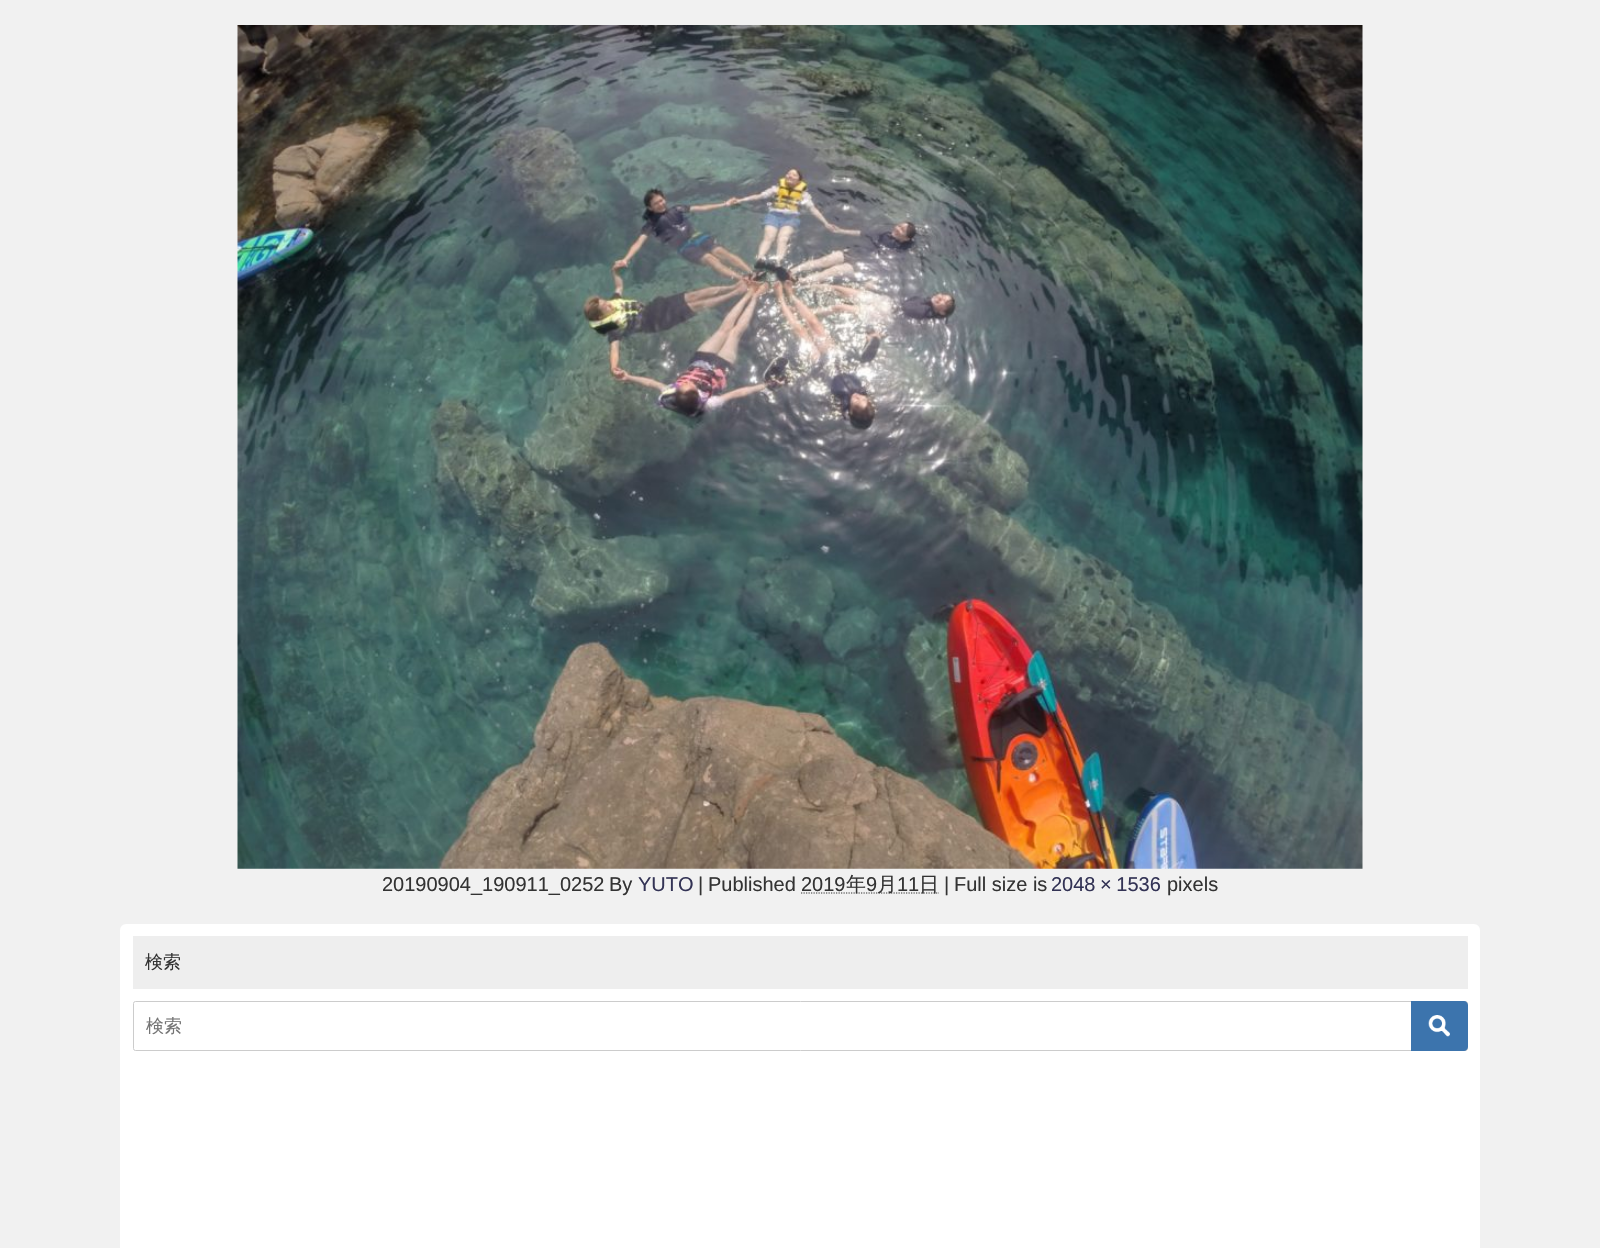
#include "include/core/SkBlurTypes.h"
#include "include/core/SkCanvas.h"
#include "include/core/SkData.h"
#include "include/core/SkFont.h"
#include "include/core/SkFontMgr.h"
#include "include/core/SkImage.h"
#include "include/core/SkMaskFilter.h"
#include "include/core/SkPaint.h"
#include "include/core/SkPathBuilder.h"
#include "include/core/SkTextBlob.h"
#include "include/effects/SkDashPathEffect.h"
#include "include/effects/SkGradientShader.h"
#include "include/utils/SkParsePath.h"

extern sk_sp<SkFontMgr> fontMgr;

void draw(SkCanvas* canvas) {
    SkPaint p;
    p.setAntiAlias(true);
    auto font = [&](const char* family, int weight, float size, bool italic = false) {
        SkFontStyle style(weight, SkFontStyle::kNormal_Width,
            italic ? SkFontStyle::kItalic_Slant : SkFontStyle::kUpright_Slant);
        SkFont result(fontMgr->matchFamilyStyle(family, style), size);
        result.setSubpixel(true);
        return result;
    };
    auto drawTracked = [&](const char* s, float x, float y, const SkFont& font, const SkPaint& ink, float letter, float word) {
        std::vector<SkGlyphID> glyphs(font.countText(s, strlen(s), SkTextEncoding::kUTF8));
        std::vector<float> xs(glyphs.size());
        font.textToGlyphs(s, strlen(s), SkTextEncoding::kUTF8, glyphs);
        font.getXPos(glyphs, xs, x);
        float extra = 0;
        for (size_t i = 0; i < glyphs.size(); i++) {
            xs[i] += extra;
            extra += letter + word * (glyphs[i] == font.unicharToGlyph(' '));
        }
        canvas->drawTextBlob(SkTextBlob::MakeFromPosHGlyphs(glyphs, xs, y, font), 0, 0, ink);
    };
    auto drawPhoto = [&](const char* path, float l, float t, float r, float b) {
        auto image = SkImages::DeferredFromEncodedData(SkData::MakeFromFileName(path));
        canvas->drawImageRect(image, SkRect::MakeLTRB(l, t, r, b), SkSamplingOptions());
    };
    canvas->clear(0xFFF1F1F1);
    drawPhoto("media/1.png", 237, 25, 1363, 869);
    auto font1 = font("Liberation Sans", 400, 20);
    p.setColor(0xFF333333);
    canvas->drawString("20190904_190911_0252", 382, 891, font1, p);
    canvas->drawString("By", 609, 891, font1, p);
    p.setColor(0xFF333355);
    canvas->drawString("YUTO", 638, 891, font1, p);
    p.setColor(0xFF333333);
    {
        const struct { const char* s; float x, y; } items[] = {
            {"|", 698, 891},
            {"Published", 708, 891},
            {"2019", 801, 891},
        };
        for (auto [s, x, y] : items) {
            canvas->drawString(s, x, y, font1, p);
        }
    }
    p.setStyle(SkPaint::kStroke_Style);
    p.setStrokeWidth(1.2f);
    p.setPathEffect(SkDashPathEffect::Make({{1.25f, 1.25f}}, 0));
    canvas->drawPath(SkPathBuilder().moveTo(801, 893).lineTo(939, 893).detach(), p);
    p.setPathEffect(nullptr);
    auto font2 = font("WenQuanYi Zen Hei", 500, 20);
    p.setStyle(SkPaint::kFill_Style);
    canvas->drawString("年", 846, 891, font2, p);
    canvas->drawString("9", 866, 891, font1, p);
    canvas->drawString("月", 877, 891, font2, p);
    canvas->drawString("11", 897, 891, font1, p);
    canvas->drawString("日", 919, 891, font2, p);
    canvas->drawString("|", 944, 891, font1, p);
    canvas->drawString("Full size is", 954, 891, font1, p);
    p.setColor(0xFF333355);
    drawTracked("2048 × 1536", 1051, 891, font1, p, 0, -1);
    p.setColor(0xFF333333);
    canvas->drawString("pixels", 1167, 891, font1, p);
    p.setColor(0xFFFFFFFF);
    canvas->drawRoundRect(SkRect::MakeLTRB(120, 924, 1480, 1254), 6, 6, p);
    p.setColor(0xFFEEEEEE);
    canvas->drawRect(SkRect::MakeLTRB(133, 936, 1468, 989), p);
    auto font3 = font("WenQuanYi Zen Hei", 500, 18);
    p.setColor(0xFF333333);
    canvas->drawString("検索", 145, 968, font3, p);
    p.setStyle(SkPaint::kStroke_Style);
    p.setStrokeWidth(1);
    p.setColor(0xFFCCCCCC);
    canvas->drawRoundRect(SkRect::MakeLTRB(133.5f, 1001.5f, 1467.5f, 1050.5f), 2, 2, p);
    p.setStyle(SkPaint::kFill_Style);
    p.setColor(0xFF757575);
    canvas->drawString("検索", 146, 1032, font3, p);
    p.setColor(0xFF3C74AD);
    canvas->drawPath(SkPathBuilder().moveTo(1411, 1001).lineTo(1464, 1001).cubicTo(1466, 1001, 1468, 1003, 1468, 1005).lineTo(1468, 1047).cubicTo(1468, 1049, 1466, 1051, 1464, 1051).lineTo(1411, 1051).close().detach(), p);
    drawPhoto("media/2.png", 1428, 1015, 1450, 1037);
}
